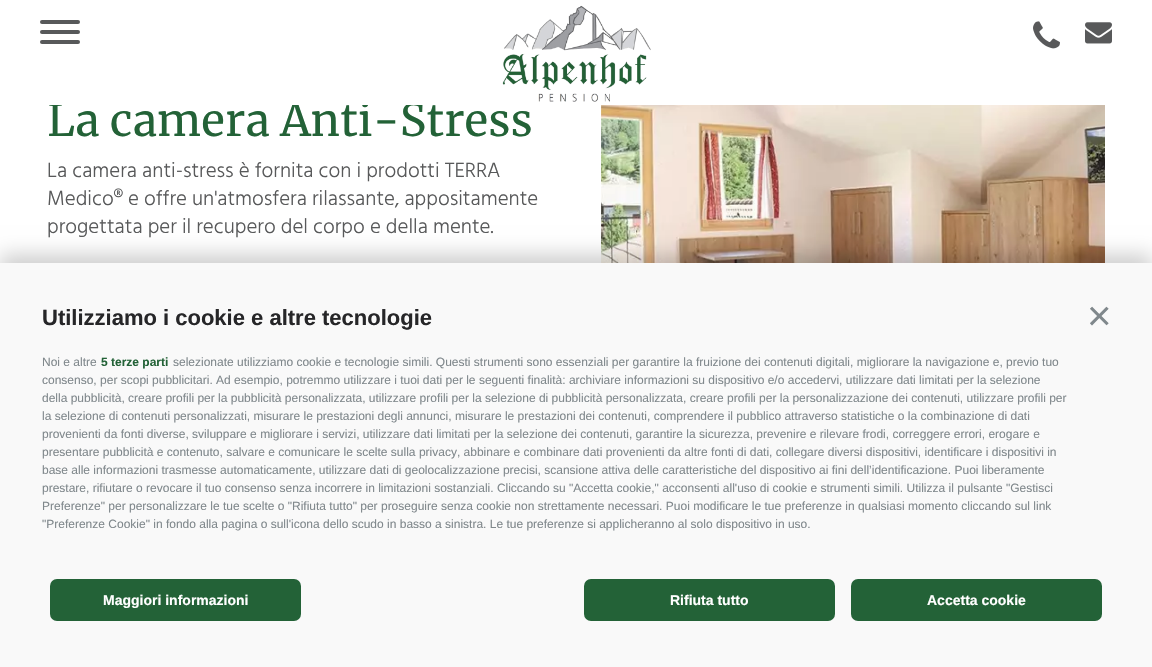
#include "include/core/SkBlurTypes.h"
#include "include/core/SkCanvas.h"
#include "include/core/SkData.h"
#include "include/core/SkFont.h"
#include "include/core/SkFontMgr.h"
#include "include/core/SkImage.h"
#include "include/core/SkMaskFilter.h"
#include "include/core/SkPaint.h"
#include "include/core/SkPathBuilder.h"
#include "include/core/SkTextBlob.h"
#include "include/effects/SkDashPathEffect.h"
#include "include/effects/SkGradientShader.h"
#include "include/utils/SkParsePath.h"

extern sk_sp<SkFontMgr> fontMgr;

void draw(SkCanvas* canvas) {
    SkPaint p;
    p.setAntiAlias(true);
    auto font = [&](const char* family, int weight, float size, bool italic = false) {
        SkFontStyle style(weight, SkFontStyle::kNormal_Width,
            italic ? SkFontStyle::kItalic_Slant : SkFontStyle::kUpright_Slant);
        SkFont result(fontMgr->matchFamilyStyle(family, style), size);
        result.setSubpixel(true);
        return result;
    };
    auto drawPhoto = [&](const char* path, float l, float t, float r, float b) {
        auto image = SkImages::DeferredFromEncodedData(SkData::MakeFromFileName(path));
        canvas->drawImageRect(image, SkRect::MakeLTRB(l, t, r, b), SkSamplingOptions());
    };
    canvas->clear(0xFFFFFFFF);
    auto font1 = font("Merriweather", 400, 44);
    p.setColor(0xFF236237);
    canvas->drawString("La camera Anti-Stress", 47, 136, font1, p);
    p.setColor(0xFFFFFFFF);
    canvas->drawRect(SkRect::MakeLTRB(49, 101, 423, 105), p);
    p.setColor(0xFF58595A);
    canvas->drawRoundRect(SkRect::MakeLTRB(40, 30, 80, 34), 2, 2, p);
    canvas->drawRoundRect(SkRect::MakeLTRB(40, 20, 80, 24), 2, 2, p);
    canvas->drawRoundRect(SkRect::MakeLTRB(40, 40, 80, 44), 2, 2, p);
    drawPhoto("media/1.png", 502, 5, 651, 102);
    drawPhoto("media/2.png", 1033, 21, 1060, 49);
    drawPhoto("media/3.png", 1085, 22, 1112, 44);
    auto font2 = font("Hind", 300, 21);
    {
        const struct { const char* s; float x, y; } items[] = {
            {"La camera anti-stress è fornita con i prodotti TERRA", 47, 177},
            {"Medico® e offre un'atmosfera rilassante, appositamente", 47, 205},
            {"progettata per il recupero del corpo e della mente.", 47, 233},
        };
        for (auto [s, x, y] : items) {
            canvas->drawString(s, x, y, font2, p);
        }
    }
    drawPhoto("media/4.png", 601, 105, 1105, 263);
    p.setColor(0x33000000);
    p.setMaskFilter(SkMaskFilter::MakeBlur(kNormal_SkBlurStyle, 10));
    canvas->drawRect(SkRect::MakeLTRB(0, 255, 1152, 659), p);
    p.setMaskFilter(nullptr);
    p.setColor(0xFFF9F9F9);
    canvas->drawRect(SkRect::MakeLTRB(0, 263, 1152, 667), p);
    auto font3 = font("Liberation Sans", 700, 22);
    p.setColor(0xFF262628);
    canvas->drawString("Utilizziamo i cookie e altre tecnologie", 42, 325, font3, p);
    auto font4 = font("Liberation Sans", 400, 42);
    p.setColor(0xFF80888C);
    canvas->drawString("×", 1087, 330, font4, p);
    auto font5 = font("Liberation Sans", 400, 12);
    canvas->drawString("Noi e altre", 42, 366, font5, p);
    auto font6 = font("Liberation Sans", 700, 12);
    p.setColor(0xFF236237);
    canvas->drawString("5 terze parti", 101, 366, font6, p);
    p.setColor(0xFF80888C);
    {
        const struct { const char* s; float x, y; } items[] = {
            {"selezionate utilizziamo cookie e tecnologie simili. Questi strumenti sono essenziali per garantire la fruizione dei contenuti digitali, migliorare la navigazione e, previo tuo", 173, 366},
            {"consenso, per scopi pubblicitari. Ad esempio, potremmo utilizzare i tuoi dati per le seguenti finalità: archiviare informazioni su dispositivo e/o accedervi, utilizzare dati limitati per la selezione", 42, 384},
            {"della pubblicità, creare profili per la pubblicità personalizzata, utilizzare profili per la selezione di pubblicità personalizzata, creare profili per la personalizzazione dei contenuti, utilizzare profili per", 42, 402},
            {"la selezione di contenuti personalizzati, misurare le prestazioni degli annunci, misurare le prestazioni dei contenuti, comprendere il pubblico attraverso statistiche o la combinazione di dati", 42, 420},
            {"provenienti da fonti diverse, sviluppare e migliorare i servizi, utilizzare dati limitati per la selezione dei contenuti, garantire la sicurezza, prevenire e rilevare frodi, correggere errori, erogare e", 42, 438},
            {"presentare pubblicità e contenuto, salvare e comunicare le scelte sulla privacy, abbinare e combinare dati provenienti da altre fonti di dati, collegare diversi dispositivi, identificare i dispositivi in", 42, 456},
            {"base alle informazioni trasmesse automaticamente, utilizzare dati di geolocalizzazione precisi, scansione attiva delle caratteristiche del dispositivo ai fini dell’identificazione. Puoi liberamente", 42, 474},
            {"prestare, rifiutare o revocare il tuo consenso senza incorrere in limitazioni sostanziali. Cliccando su \"Accetta cookie,\" acconsenti all'uso di cookie e strumenti simili. Utilizza il pulsante \"Gestisci", 42, 492},
            {"Preferenze\" per personalizzare le tue scelte o \"Rifiuta tutto\" per proseguire senza cookie non strettamente necessari. Puoi modificare le tue preferenze in qualsiasi momento cliccando sul link", 42, 510},
            {"\"Preferenze Cookie\" in fondo alla pagina o sull'icona dello scudo in basso a sinistra. Le tue preferenze si applicheranno al solo dispositivo in uso.", 42, 528},
        };
        for (auto [s, x, y] : items) {
            canvas->drawString(s, x, y, font5, p);
        }
    }
    p.setColor(0xFF236237);
    canvas->drawRoundRect(SkRect::MakeLTRB(50, 579, 301, 621), 7, 7, p);
    auto font7 = font("Liberation Sans", 700, 14);
    p.setColor(0xFFFFFFFF);
    canvas->drawString("Maggiori informazioni", 103, 605, font7, p);
    p.setColor(0xFF236237);
    canvas->drawRoundRect(SkRect::MakeLTRB(584, 579, 835, 621), 7, 7, p);
    p.setColor(0xFFFFFFFF);
    canvas->drawString("Rifiuta tutto", 670, 605, font7, p);
    p.setColor(0xFF236237);
    canvas->drawRoundRect(SkRect::MakeLTRB(851, 579, 1102, 621), 7, 7, p);
    p.setColor(0xFFFFFFFF);
    canvas->drawString("Accetta cookie", 927, 605, font7, p);
}
